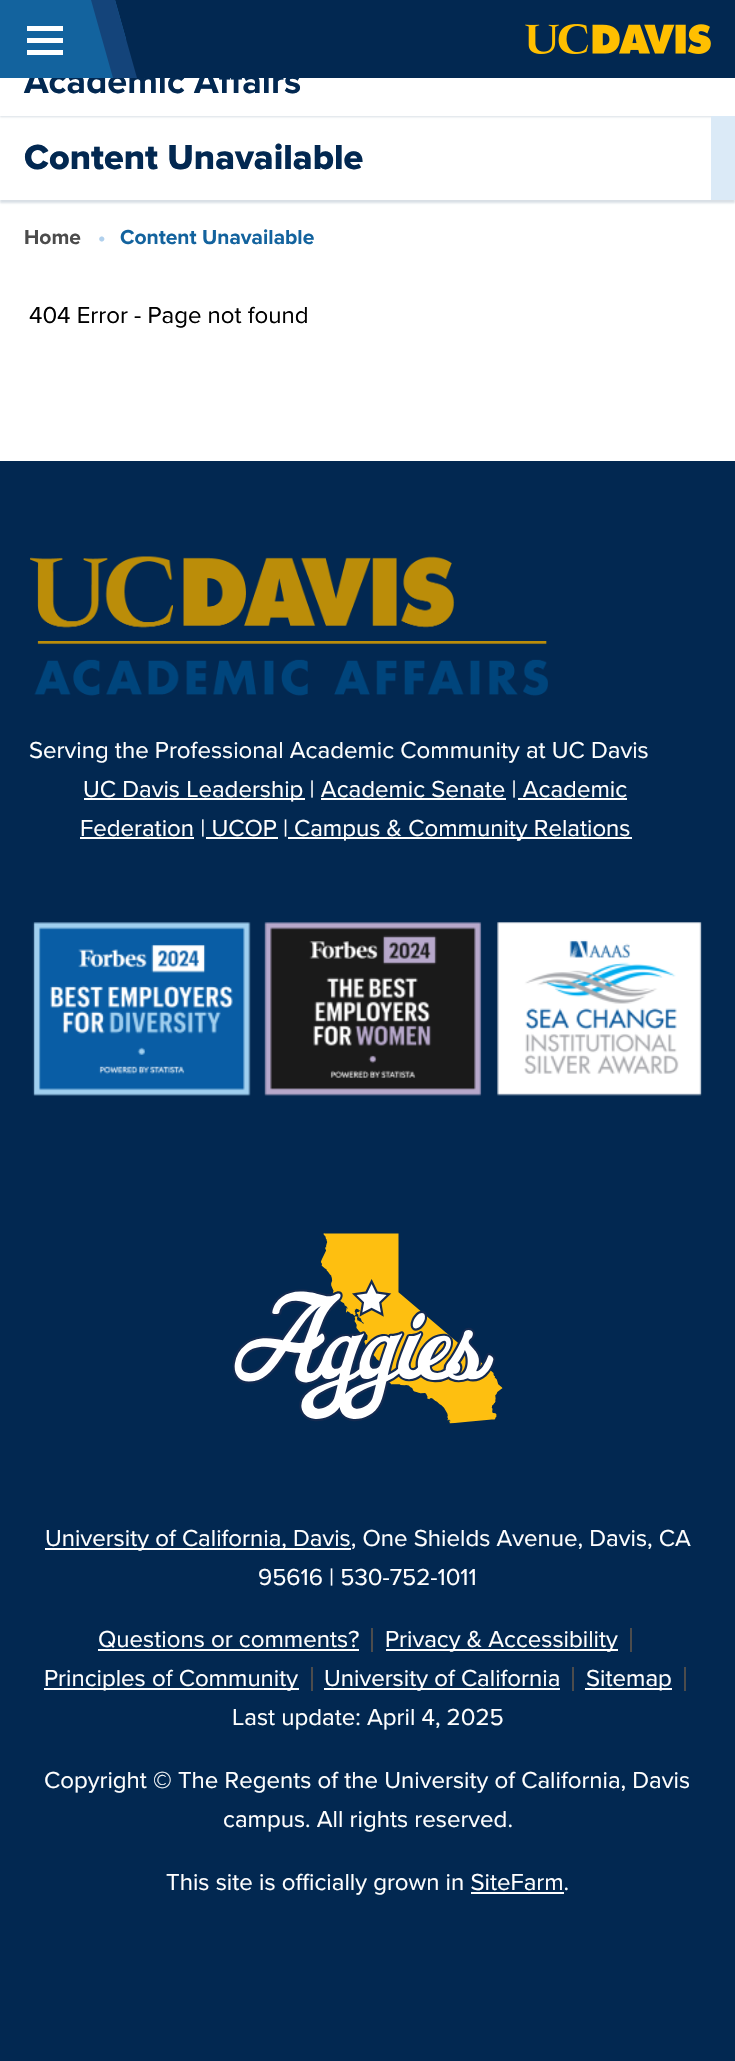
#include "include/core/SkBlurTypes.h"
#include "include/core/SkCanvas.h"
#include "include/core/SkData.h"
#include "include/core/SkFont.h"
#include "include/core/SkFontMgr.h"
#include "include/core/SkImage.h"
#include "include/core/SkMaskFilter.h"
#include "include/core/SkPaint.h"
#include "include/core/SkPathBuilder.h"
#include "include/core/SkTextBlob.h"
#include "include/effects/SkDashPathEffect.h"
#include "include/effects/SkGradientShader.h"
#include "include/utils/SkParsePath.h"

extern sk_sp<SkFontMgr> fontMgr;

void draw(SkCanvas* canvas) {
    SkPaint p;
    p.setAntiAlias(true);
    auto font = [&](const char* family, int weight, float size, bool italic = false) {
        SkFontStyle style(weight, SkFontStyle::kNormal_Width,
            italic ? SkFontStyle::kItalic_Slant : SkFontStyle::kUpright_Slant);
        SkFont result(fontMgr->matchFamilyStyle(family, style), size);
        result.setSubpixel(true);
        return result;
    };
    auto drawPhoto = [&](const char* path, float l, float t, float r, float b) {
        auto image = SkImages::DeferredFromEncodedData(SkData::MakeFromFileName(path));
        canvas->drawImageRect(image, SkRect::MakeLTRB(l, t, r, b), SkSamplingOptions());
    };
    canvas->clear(0xFFFFFFFF);
    p.setColor(0x26022851);
    p.setMaskFilter(SkMaskFilter::MakeBlur(kNormal_SkBlurStyle, 1));
    canvas->drawRect(SkRect::MakeLTRB(0, 50, 735, 117), p);
    p.setMaskFilter(nullptr);
    p.setColor(0xFFFFFFFF);
    canvas->drawRect(SkRect::MakeLTRB(0, 78, 735, 116), p);
    p.setColor(0xFF022851);
    canvas->drawRect(SkRect::MakeLTRB(126, 0, 735, 78), p);
    auto font1 = font("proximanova", 700, 36);
    canvas->drawString("Academic Affairs", 24, 93, font1, p);
    {
        const struct { float l, t, r, b; SkColor color; } items[] = {
            {0, 0, 126, 78, 0xFF13639E},
            {27, 38, 63, 43, 0xFFFFFFFF},
            {27, 26, 63, 31, 0xFFFFFFFF},
            {27, 50, 63, 55, 0xFFFFFFFF},
        };
        for (auto [l, t, r, b, color] : items) {
            p.setColor(color);
            canvas->drawRect(SkRect::MakeLTRB(l, t, r, b), p);
        }
    }
    p.setColor(0xFF022851);
    canvas->drawPath(SkPathBuilder().moveTo(115, 0).lineTo(139, 0).lineTo(161, 78).lineTo(137, 78).close().detach(), p);
    p.setColor(0xFF14447A);
    canvas->drawPath(SkPathBuilder().moveTo(91, 0).lineTo(115, 0).lineTo(137, 78).lineTo(113, 78).close().detach(), p);
    drawPhoto("media/1.png", 525, 24, 711, 54);
    canvas->save();
    canvas->clipPath(SkPathBuilder(SkPathFillType::kEvenOdd).moveTo(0, 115).lineTo(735, 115).lineTo(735, 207).lineTo(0, 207).close().moveTo(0, 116).lineTo(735, 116).lineTo(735, 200).lineTo(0, 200).close().detach(), true);
    p.setColor(0x26022851);
    p.setMaskFilter(SkMaskFilter::MakeBlur(kNormal_SkBlurStyle, 1));
    canvas->drawRect(SkRect::MakeLTRB(0, 119, 735, 203), p);
    p.setMaskFilter(nullptr);
    canvas->restore();
    auto font2 = font("Proxima Nova", 800, 36);
    p.setColor(0xFF022851);
    canvas->drawString("Content Unavailable", 24, 169, font2, p);
    p.setColor(0xFFDBEAF7);
    canvas->drawRect(SkRect::MakeLTRB(711, 116, 735, 200), p);
    auto font3 = font("proximanova", 700, 21);
    p.setColor(0xFF4C4C4C);
    canvas->drawString("Home", 24, 244, font3, p);
    p.setColor(0xFFB0D0ED);
    canvas->drawString("•", 98, 244, font3, p);
    p.setColor(0xFF13639E);
    canvas->drawString("Content Unavailable", 120, 244, font3, p);
    auto font4 = font("proximanova", 400, 24);
    p.setColor(0xFF000000);
    canvas->drawString("404 Error - Page not found", 29, 323, font4, p);
    p.setColor(0xFF022851);
    canvas->drawRect(SkRect::MakeLTRB(0, 461, 735, 2061), p);
    drawPhoto("media/2.png", 30, 556, 548, 696);
    p.setColor(0xFFFFFFFF);
    canvas->drawString("Serving the Professional Academic Community at UC Davis", 29, 758, font4, p);
    canvas->drawRect(SkRect::MakeLTRB(84, 798, 305, 800), p);
    canvas->drawString("UC Davis Leadership | Academic Senate | Academic", 83, 797, font4, p);
    canvas->drawRect(SkRect::MakeLTRB(321, 798, 506, 800), p);
    canvas->drawString("Federation | UCOP |", 80, 836, font4, p);
    {
        const struct { float l, t, r, b; SkColor color; } items[] = {
            {518, 798, 627, 800, 0xFFFFFFFF},
            {80, 837, 194, 839, 0xFFFFFFFF},
            {288, 837, 632, 839, 0xFFFFFFFF},
        };
        for (auto [l, t, r, b, color] : items) {
            p.setColor(color);
            canvas->drawRect(SkRect::MakeLTRB(l, t, r, b), p);
        }
    }
    canvas->drawString("Campus & Community Relations", 294, 836, font4, p);
    canvas->drawRect(SkRect::MakeLTRB(206, 837, 278, 839), p);
    drawPhoto("media/3.png", 32, 922, 702, 1096);
    drawPhoto("media/4.png", 233, 1233, 503, 1424);
    canvas->drawRect(SkRect::MakeLTRB(45, 1548, 351, 1550), p);
    canvas->drawString("University of California, Davis, One Shields Avenue, Davis, CA", 45, 1546, font4, p);
    canvas->drawString("95616 | 530-752-1011", 258, 1585, font4, p);
    p.setColor(0xFF4C4C4C);
    canvas->drawRect(SkRect::MakeLTRB(371, 1628, 373, 1652), p);
    p.setColor(0xFFFFFFFF);
    canvas->drawString("Questions or comments?", 98, 1647, font4, p);
    {
        const struct { float l, t, r, b; SkColor color; } items[] = {
            {98, 1649, 359, 1651, 0xFFFFFFFF},
            {630, 1628, 632, 1652, 0xFF4C4C4C},
            {386, 1649, 618, 1651, 0xFFFFFFFF},
        };
        for (auto [l, t, r, b, color] : items) {
            p.setColor(color);
            canvas->drawRect(SkRect::MakeLTRB(l, t, r, b), p);
        }
    }
    canvas->drawString("Privacy & Accessibility", 385, 1647, font4, p);
    p.setColor(0xFF4C4C4C);
    canvas->drawRect(SkRect::MakeLTRB(311, 1667, 313, 1691), p);
    p.setColor(0xFFFFFFFF);
    canvas->drawRect(SkRect::MakeLTRB(44, 1688, 299, 1690), p);
    canvas->drawString("Principles of Community", 44, 1686, font4, p);
    p.setColor(0xFF4C4C4C);
    canvas->drawRect(SkRect::MakeLTRB(572, 1667, 574, 1691), p);
    p.setColor(0xFFFFFFFF);
    canvas->drawRect(SkRect::MakeLTRB(324, 1688, 560, 1690), p);
    canvas->drawString("University of California", 324, 1686, font4, p);
    p.setColor(0xFF4C4C4C);
    canvas->drawRect(SkRect::MakeLTRB(684, 1667, 686, 1691), p);
    p.setColor(0xFFFFFFFF);
    canvas->drawRect(SkRect::MakeLTRB(585, 1688, 672, 1690), p);
    {
        const struct { const char* s; float x, y; } items[] = {
            {"Sitemap", 586, 1686},
            {"Last update: April 4, 2025", 232, 1725},
            {"Copyright © The Regents of the University of California, Davis", 44, 1788},
            {"campus. All rights reserved.", 223, 1827},
            {"This site is officially grown in SiteFarm.", 166, 1890},
        };
        for (auto [s, x, y] : items) {
            canvas->drawString(s, x, y, font4, p);
        }
    }
    canvas->drawRect(SkRect::MakeLTRB(471, 1892, 564, 1894), p);
}
